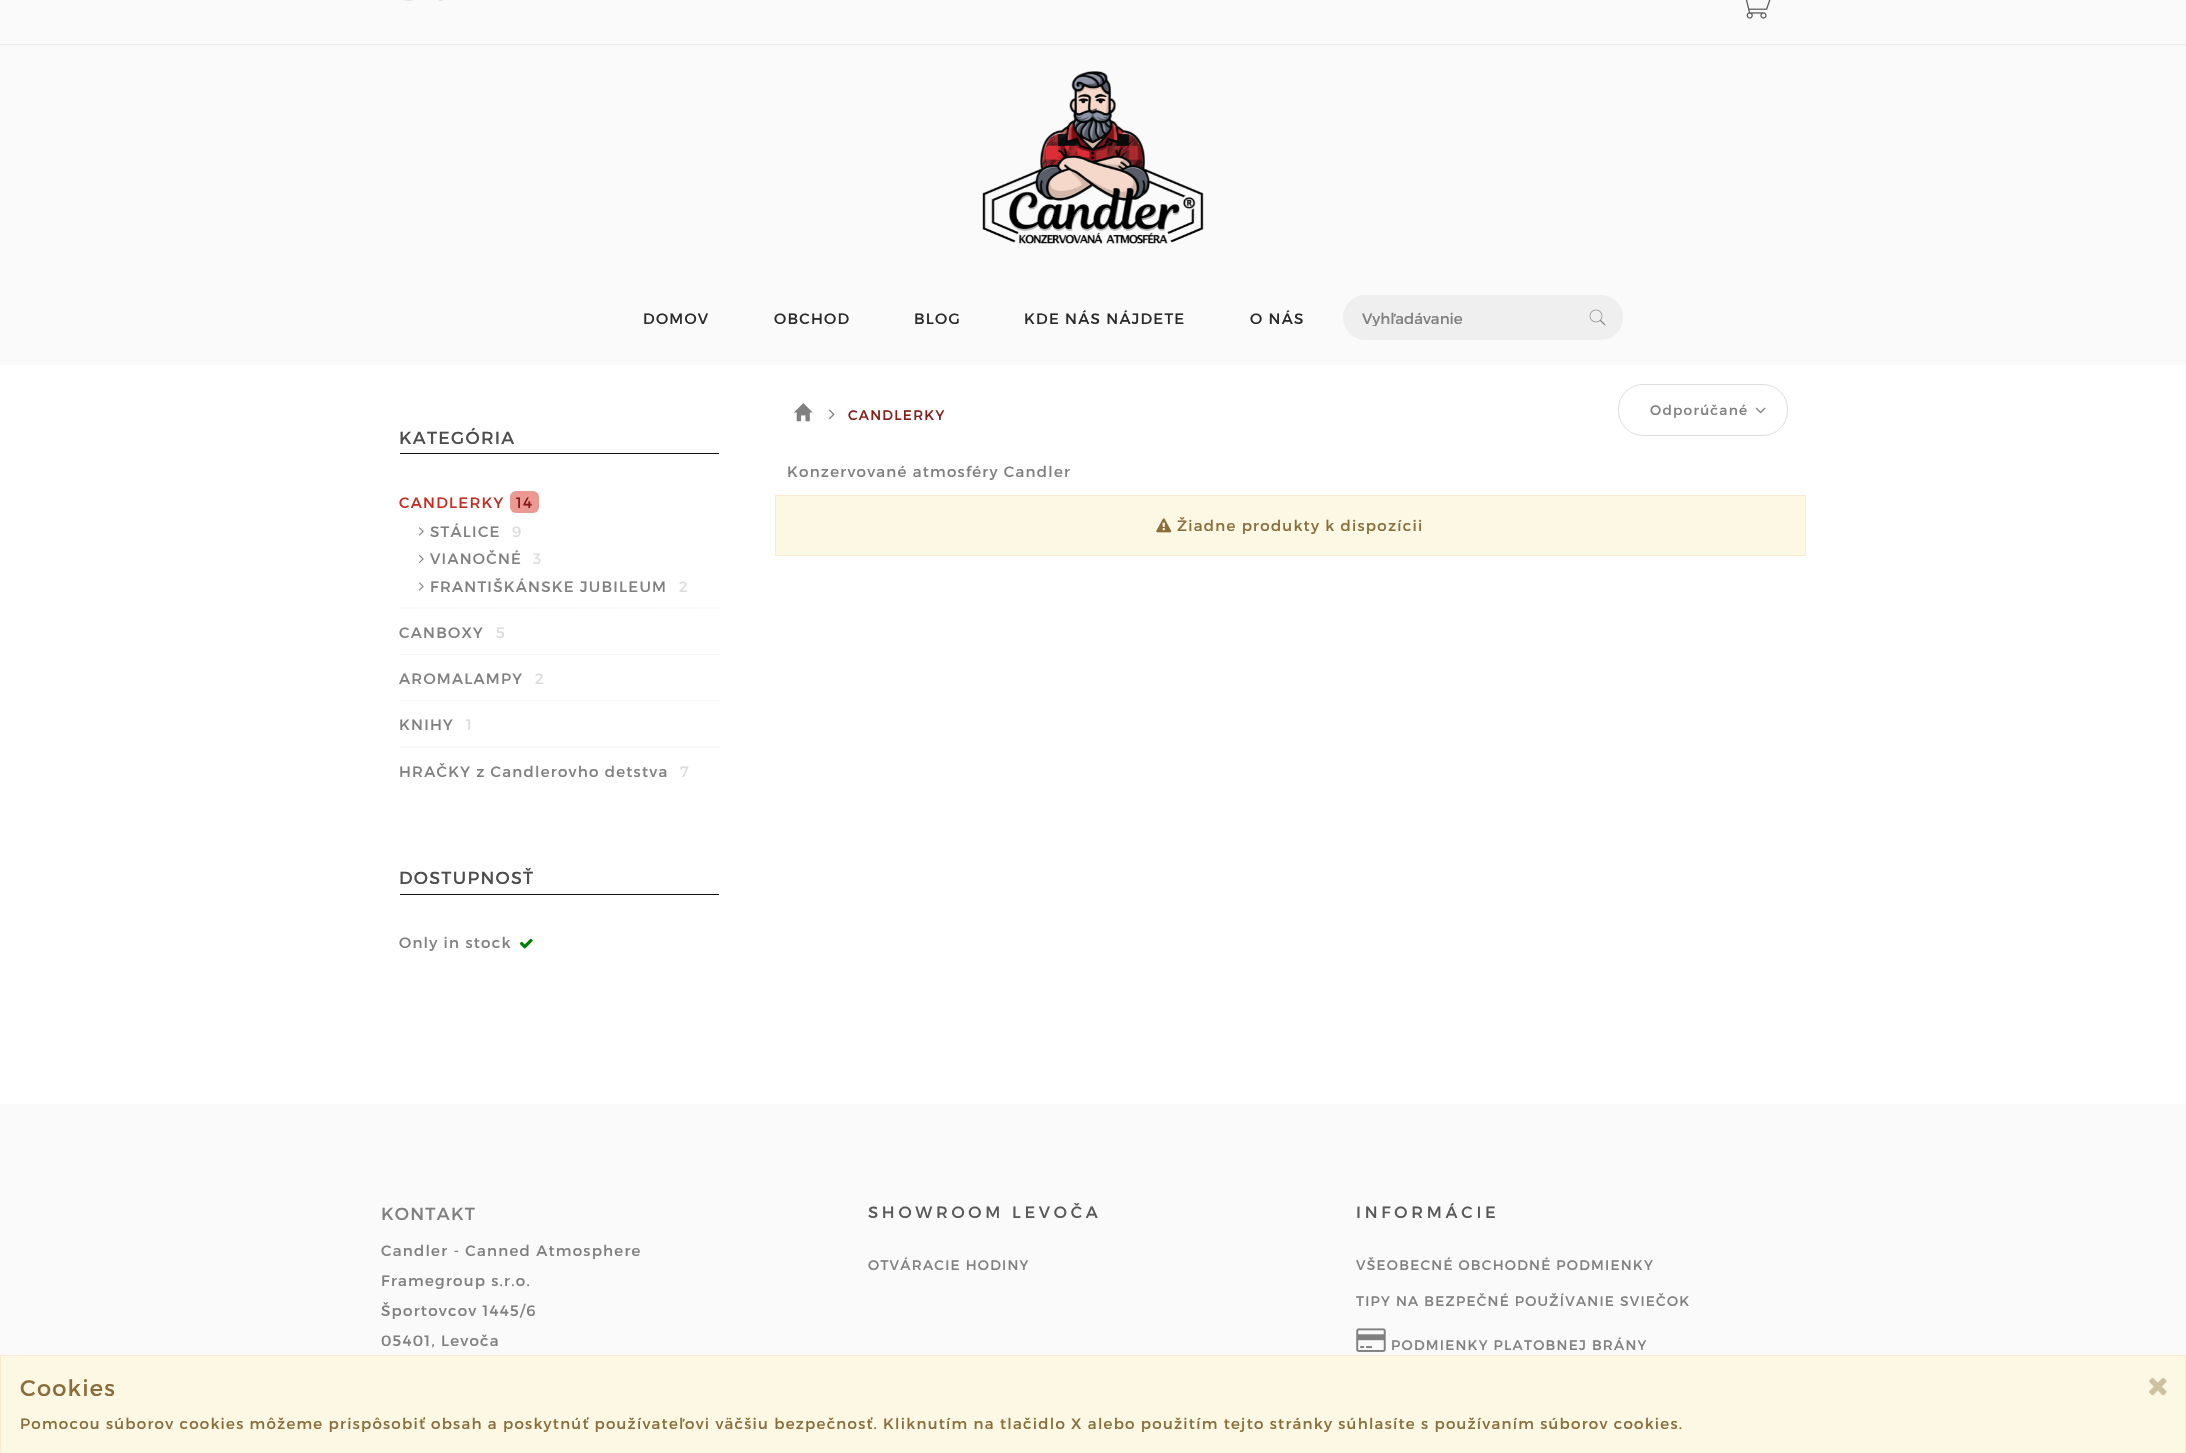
#include "include/core/SkBlurTypes.h"
#include "include/core/SkCanvas.h"
#include "include/core/SkData.h"
#include "include/core/SkFont.h"
#include "include/core/SkFontMgr.h"
#include "include/core/SkImage.h"
#include "include/core/SkMaskFilter.h"
#include "include/core/SkPaint.h"
#include "include/core/SkPathBuilder.h"
#include "include/core/SkTextBlob.h"
#include "include/effects/SkDashPathEffect.h"
#include "include/effects/SkGradientShader.h"
#include "include/utils/SkParsePath.h"

extern sk_sp<SkFontMgr> fontMgr;

void draw(SkCanvas* canvas) {
    SkPaint p;
    p.setAntiAlias(true);
    auto font = [&](const char* family, int weight, float size, bool italic = false) {
        SkFontStyle style(weight, SkFontStyle::kNormal_Width,
            italic ? SkFontStyle::kItalic_Slant : SkFontStyle::kUpright_Slant);
        SkFont result(fontMgr->matchFamilyStyle(family, style), size);
        result.setSubpixel(true);
        return result;
    };
    auto drawTracked = [&](const char* s, float x, float y, const SkFont& font, const SkPaint& ink, float letter, float word) {
        std::vector<SkGlyphID> glyphs(font.countText(s, strlen(s), SkTextEncoding::kUTF8));
        std::vector<float> xs(glyphs.size());
        font.textToGlyphs(s, strlen(s), SkTextEncoding::kUTF8, glyphs);
        font.getXPos(glyphs, xs, x);
        float extra = 0;
        for (size_t i = 0; i < glyphs.size(); i++) {
            xs[i] += extra;
            extra += letter + word * (glyphs[i] == font.unicharToGlyph(' '));
        }
        canvas->drawTextBlob(SkTextBlob::MakeFromPosHGlyphs(glyphs, xs, y, font), 0, 0, ink);
    };
    auto drawPhoto = [&](const char* path, float l, float t, float r, float b) {
        auto image = SkImages::DeferredFromEncodedData(SkData::MakeFromFileName(path));
        canvas->drawImageRect(image, SkRect::MakeLTRB(l, t, r, b), SkSamplingOptions());
    };
    canvas->clear(0xFFFFFFFF);
    p.setColor(0xFFFAFAFA);
    canvas->drawRect(SkRect::MakeLTRB(0, 0, 2186, 44), p);
    drawPhoto("media/1.png", 404, 0, 413, 1);
    drawPhoto("media/2.png", 439, 0, 443, 1);
    drawPhoto("media/3.png", 1745, 0, 1771, 19);
    canvas->drawRect(SkRect::MakeLTRB(0, 45, 2186, 365), p);
    p.setColor(0xFFECECEC);
    canvas->drawRect(SkRect::MakeLTRB(0, 44, 2186, 45), p);
    drawPhoto("media/4.png", 982, 71, 1204, 244);
    auto font1 = font("Montserrat", 400, 15);
    p.setColor(0xFF2A2A2A);
    {
        const struct { const char* s; float x, y; } items[] = {
            {"DOMOV", 643, 324},
            {"OBCHOD", 774, 324},
            {"BLOG", 914, 324},
            {"KDE NÁS NÁJDETE", 1024, 324},
            {"O NÁS", 1250, 324},
        };
        for (auto [s, x, y] : items) {
            drawTracked(s, x, y, font1, p, 1.25f, 0);
        }
    }
    p.setColor(0xFFEFEFEF);
    canvas->drawPath(SkPathBuilder().moveTo(1365.5f, 295).lineTo(1574, 295).lineTo(1574, 340).lineTo(1365.5f, 340).cubicTo(1353, 340, 1343, 330, 1343, 317.5f).cubicTo(1343, 305, 1353, 295, 1365.5f, 295).close().detach(), p);
    canvas->save();
    canvas->clipRect(SkRect::MakeLTRB(1361, 309, 1561, 326));
    p.setColor(0xFF808080);
    canvas->drawString("Vyhľadávanie", 1362, 324, font1, p);
    canvas->restore();
    p.setColor(0xFFEFEFEF);
    canvas->drawPath(SkPathBuilder().moveTo(1573, 295).lineTo(1600.5f, 295).cubicTo(1613, 295, 1623, 305, 1623, 317.5f).cubicTo(1623, 330, 1613, 340, 1600.5f, 340).lineTo(1573, 340).close().detach(), p);
    drawPhoto("media/5.png", 1589, 309, 1606, 326);
    p.setColor(0xFF131313);
    canvas->drawRect(SkRect::MakeLTRB(400, 453, 719, 454), p);
    auto font2 = font("Montserrat", 400, 17.5f);
    p.setColor(0xFF4D4D4D);
    drawTracked("KATEGÓRIA", 399, 444, font2, p, 1.25f, 0);
    p.setColor(0xFFC52C22);
    drawTracked("CANDLERKY", 399, 508, font1, p, 1.25f, 0);
    p.setColor(0xFFEC9994);
    canvas->drawRoundRect(SkRect::MakeLTRB(510, 491, 539, 513), 6, 6, p);
    p.setColor(0xFF841D17);
    drawTracked("14", 516, 508, font1, p, 1.25f, 0);
    drawPhoto("media/6.png", 419, 527, 424, 536);
    p.setColor(0xFF808080);
    drawTracked("STÁLICE", 430, 537, font1, p, 1.25f, 0);
    p.setColor(0xFFDDDDDD);
    drawTracked("9", 512, 537, font1, p, 1.25f, 0);
    drawPhoto("media/7.png", 418, 554, 424, 563);
    p.setColor(0xFF808080);
    drawTracked("VIANOČNÉ", 430, 564, font1, p, 1.25f, 0);
    p.setColor(0xFFDDDDDD);
    drawTracked("3", 533, 564, font1, p, 1.25f, 0);
    drawPhoto("media/6.png", 419, 582, 424, 591);
    p.setColor(0xFF808080);
    drawTracked("FRANTIŠKÁNSKE JUBILEUM", 430, 592, font1, p, 1.25f, 0);
    p.setColor(0xFFDDDDDD);
    drawTracked("2", 679, 592, font1, p, 1.25f, 0);
    p.setStyle(SkPaint::kStroke_Style);
    p.setStrokeWidth(1.2f);
    p.setColor(0xFFECECEC);
    p.setPathEffect(SkDashPathEffect::Make({{1.25f, 1.25f}}, 0));
    canvas->drawPath(SkPathBuilder().moveTo(400, 608).lineTo(719, 608).detach(), p);
    p.setPathEffect(nullptr);
    p.setStyle(SkPaint::kFill_Style);
    p.setColor(0xFF808080);
    drawTracked("CANBOXY", 399, 638, font1, p, 1.25f, 0);
    p.setColor(0xFFDDDDDD);
    drawTracked("5", 496, 638, font1, p, 1.25f, 0);
    p.setStyle(SkPaint::kStroke_Style);
    p.setColor(0xFFECECEC);
    p.setPathEffect(SkDashPathEffect::Make({{1.25f, 1.25f}}, 0));
    canvas->drawPath(SkPathBuilder().moveTo(400, 654.5f).lineTo(719, 654.5f).detach(), p);
    p.setPathEffect(nullptr);
    p.setStyle(SkPaint::kFill_Style);
    p.setColor(0xFF808080);
    drawTracked("AROMALAMPY", 399, 684, font1, p, 1.25f, 0);
    p.setColor(0xFFDDDDDD);
    drawTracked("2", 535, 684, font1, p, 1.25f, 0);
    p.setStyle(SkPaint::kStroke_Style);
    p.setColor(0xFFECECEC);
    p.setPathEffect(SkDashPathEffect::Make({{1.25f, 1.25f}}, 0));
    canvas->drawPath(SkPathBuilder().moveTo(400, 700.5f).lineTo(719, 700.5f).detach(), p);
    p.setPathEffect(nullptr);
    p.setStyle(SkPaint::kFill_Style);
    p.setColor(0xFF808080);
    drawTracked("KNIHY", 399, 730, font1, p, 1.25f, 0);
    p.setColor(0xFFDDDDDD);
    drawTracked("1", 466, 730, font1, p, 1.25f, 0);
    p.setStyle(SkPaint::kStroke_Style);
    p.setColor(0xFFECECEC);
    p.setPathEffect(SkDashPathEffect::Make({{1.25f, 1.25f}}, 0));
    canvas->drawPath(SkPathBuilder().moveTo(400, 747).lineTo(719, 747).detach(), p);
    p.setPathEffect(nullptr);
    p.setStyle(SkPaint::kFill_Style);
    p.setColor(0xFF808080);
    drawTracked("HRAČKY z Candlerovho detstva", 399, 777, font1, p, 1.25f, 0);
    p.setColor(0xFFDDDDDD);
    drawTracked("7", 680, 777, font1, p, 1.25f, 0);
    p.setColor(0xFF131313);
    canvas->drawRect(SkRect::MakeLTRB(400, 894, 719, 895), p);
    p.setColor(0xFF4D4D4D);
    drawTracked("DOSTUPNOSŤ", 399, 884, font2, p, 1.25f, 0);
    p.setColor(0xFF808080);
    drawTracked("Only in stock", 399, 948, font1, p, 1.25f, 0);
    drawPhoto("media/8.png", 519, 938, 533, 949);
    drawPhoto("media/9.png", 794, 403, 813, 422);
    drawPhoto("media/10.png", 828, 409, 835, 420);
    auto font3 = font("Montserrat", 400, 13.75f);
    p.setColor(0xFF841D17);
    drawTracked("CANDLERKY", 848, 420, font3, p, 1.25f, 0);
    p.setStyle(SkPaint::kStroke_Style);
    p.setStrokeWidth(1);
    p.setColor(0xFFDDDDDD);
    canvas->drawRoundRect(SkRect::MakeLTRB(1618.5f, 384.5f, 1787.5f, 435.5f), 24.5f, 24.5f, p);
    p.setStyle(SkPaint::kFill_Style);
    p.setColor(0xFF808080);
    drawTracked("Odporúčané", 1650, 415, font3, p, 1.25f, 0);
    drawPhoto("media/11.png", 1755, 407, 1766, 414);
    drawTracked("Konzervované atmosféry Candler", 787, 477, font1, p, 1.25f, 0);
    p.setColor(0xFFFCF8E3);
    canvas->drawRect(SkRect::MakeLTRB(775.5f, 495.5f, 1805.5f, 555.5f), p);
    p.setStyle(SkPaint::kStroke_Style);
    p.setColor(0xFFFAEBCC);
    canvas->drawRect(SkRect::MakeLTRB(775.5f, 495.5f, 1805.5f, 555.5f), p);
    drawPhoto("media/12.png", 1156, 518, 1172, 533);
    p.setStyle(SkPaint::kFill_Style);
    p.setColor(0xFF8A6D3B);
    drawTracked("Žiadne produkty k dispozícii", 1177, 531, font1, p, 1.25f, 0);
    p.setColor(0xFFFAFAFA);
    canvas->drawRect(SkRect::MakeLTRB(0, 1104, 2186, 1355), p);
    p.setColor(0xFF808080);
    drawTracked("KONTAKT", 381, 1220, font2, p, 1.25f, 0);
    {
        const struct { const char* s; float x, y; } items[] = {
            {"Candler - Canned Atmosphere", 381, 1256},
            {"Framegroup s.r.o.", 381, 1286},
            {"Športovcov 1445/6", 381, 1316},
            {"05401, Levoča", 381, 1346},
        };
        for (auto [s, x, y] : items) {
            drawTracked(s, x, y, font1, p, 1.25f, 0);
        }
    }
    auto font4 = font("Montserrat", 400, 16.25f);
    p.setColor(0xFF585858);
    drawTracked("SHOWROOM LEVOČA", 868, 1218, font4, p, 3.75f, 0);
    p.setColor(0xFF808080);
    drawTracked("OTVÁRACIE HODINY", 868, 1270, font3, p, 1.25f, 0);
    p.setColor(0xFF585858);
    drawTracked("INFORMÁCIE", 1356, 1218, font4, p, 3.75f, 0);
    p.setColor(0xFF808080);
    drawTracked("VŠEOBECNÉ OBCHODNÉ PODMIENKY", 1356, 1270, font3, p, 1.25f, 0);
    drawTracked("TIPY NA BEZPEČNÉ POUŽÍVANIE SVIEČOK", 1356, 1306, font3, p, 1.25f, 0);
    drawPhoto("media/13.png", 1356, 1328, 1386, 1352);
    drawTracked("PODMIENKY PLATOBNEJ BRÁNY", 1391, 1350, font3, p, 1.25f, 0);
    p.setColor(0xFFFCF8E3);
    canvas->drawRect(SkRect::MakeLTRB(0.5f, 1355.5f, 2185.5f, 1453.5f), p);
    p.setStyle(SkPaint::kStroke_Style);
    p.setColor(0xFFFAEBCC);
    canvas->drawRect(SkRect::MakeLTRB(0.5f, 1355.5f, 2185.5f, 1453.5f), p);
    auto font5 = font("Montserrat", 400, 22.5f);
    p.setStyle(SkPaint::kFill_Style);
    p.setColor(0xFF8A6D3B);
    drawTracked("Cookies", 20, 1396, font5, p, 1.25f, 0);
    drawPhoto("media/14.png", 2149, 1377, 2167, 1396);
    drawTracked("Pomocou súborov cookies môžeme prispôsobiť obsah a poskytnúť používateľovi väčšiu bezpečnosť. Kliknutím na tlačidlo X alebo použitím tejto stránky súhlasíte s používaním súborov cookies.", 20, 1429, font1, p, 1.25f, 0);
}
